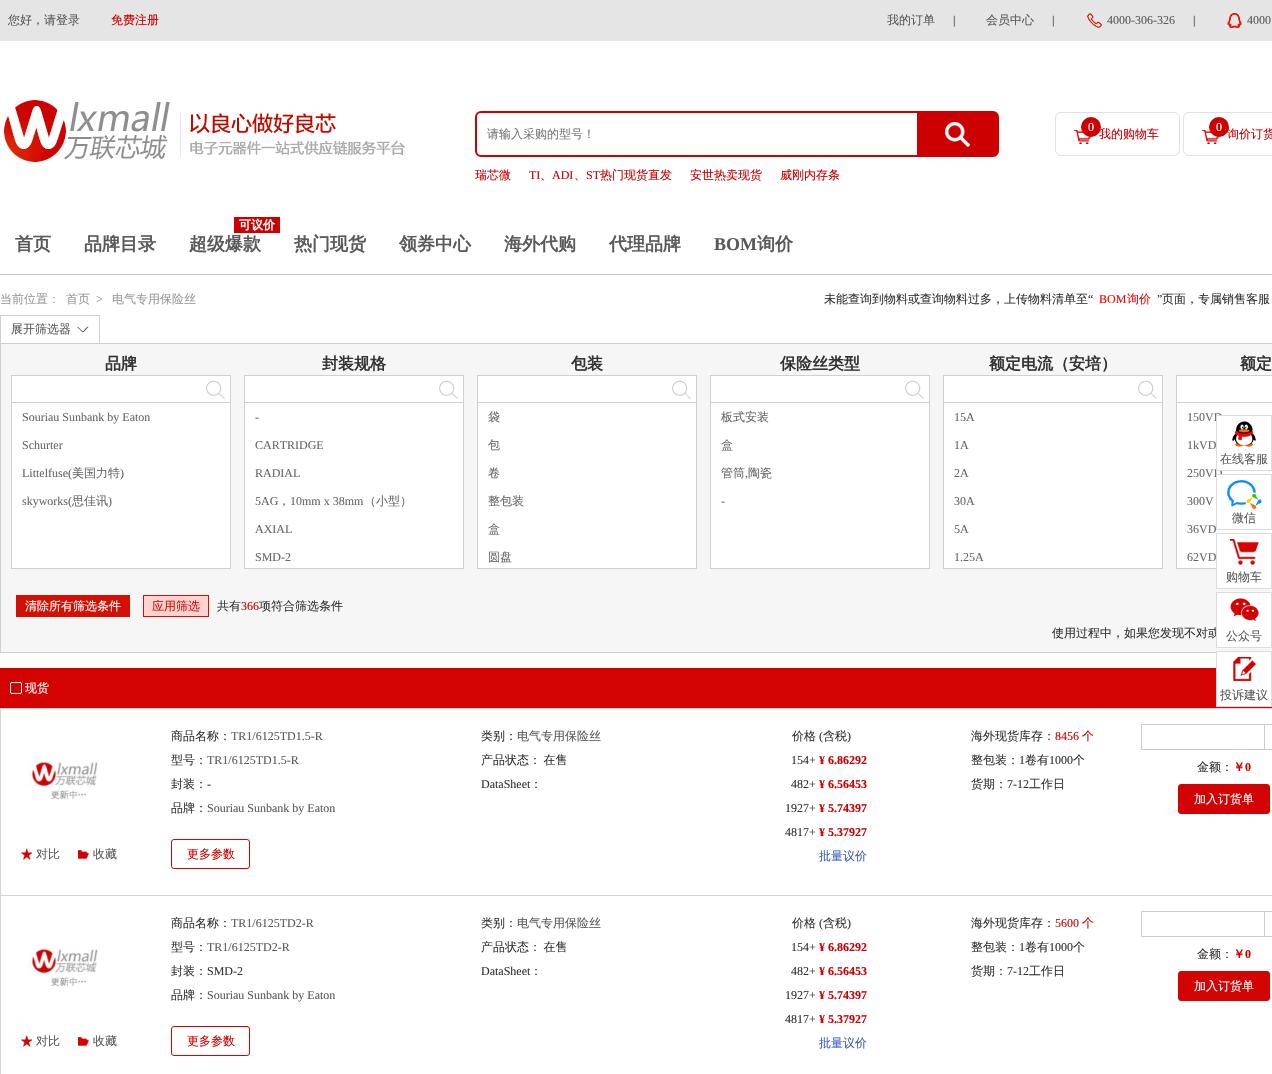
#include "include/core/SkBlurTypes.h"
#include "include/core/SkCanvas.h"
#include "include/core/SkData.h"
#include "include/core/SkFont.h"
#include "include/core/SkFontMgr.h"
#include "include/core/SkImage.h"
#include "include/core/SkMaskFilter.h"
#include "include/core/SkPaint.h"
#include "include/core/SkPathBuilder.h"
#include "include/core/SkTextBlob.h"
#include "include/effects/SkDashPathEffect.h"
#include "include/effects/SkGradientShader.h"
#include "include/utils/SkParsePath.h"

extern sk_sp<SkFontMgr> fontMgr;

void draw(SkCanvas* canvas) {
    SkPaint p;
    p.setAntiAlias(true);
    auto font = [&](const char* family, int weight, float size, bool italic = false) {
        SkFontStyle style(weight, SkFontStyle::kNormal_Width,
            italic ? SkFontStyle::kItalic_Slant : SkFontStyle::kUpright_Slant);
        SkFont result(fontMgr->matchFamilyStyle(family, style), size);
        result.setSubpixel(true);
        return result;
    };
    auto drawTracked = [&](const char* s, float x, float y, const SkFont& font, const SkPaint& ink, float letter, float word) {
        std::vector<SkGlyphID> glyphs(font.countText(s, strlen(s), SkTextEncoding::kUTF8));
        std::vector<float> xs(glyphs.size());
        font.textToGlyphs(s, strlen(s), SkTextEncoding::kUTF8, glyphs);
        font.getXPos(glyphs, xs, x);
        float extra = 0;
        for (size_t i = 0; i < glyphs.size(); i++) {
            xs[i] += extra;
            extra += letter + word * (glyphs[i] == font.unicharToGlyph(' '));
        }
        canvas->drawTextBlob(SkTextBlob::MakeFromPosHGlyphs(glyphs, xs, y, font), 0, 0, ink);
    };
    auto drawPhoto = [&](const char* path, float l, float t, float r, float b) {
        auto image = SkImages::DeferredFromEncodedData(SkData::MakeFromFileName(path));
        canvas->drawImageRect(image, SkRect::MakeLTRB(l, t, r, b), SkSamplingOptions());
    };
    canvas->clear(0xFFFFFFFF);
    p.setColor(0xFFE5E5E5);
    canvas->drawRect(SkRect::MakeLTRB(0, 0, 1272, 40), p);
    p.setColor(0xFFE9E8E7);
    canvas->drawRect(SkRect::MakeLTRB(0, 40, 1272, 41), p);
    auto font1 = font("WenQuanYi Zen Hei", 500, 12);
    p.setColor(0xFF595959);
    canvas->drawString("您好，请登录", 8, 24, font1, p);
    p.setColor(0xFFCC0001);
    canvas->drawString("免费注册", 111, 24, font1, p);
    p.setColor(0xFF595959);
    canvas->drawString("我的订单", 887, 24, font1, p);
    auto font2 = font("Liberation Serif", 400, 12);
    p.setColor(0xFF333333);
    canvas->drawString("|", 953, 24, font2, p);
    p.setColor(0xFF595959);
    canvas->drawString("会员中心", 986, 24, font1, p);
    p.setColor(0xFF333333);
    canvas->drawString("|", 1052, 24, font2, p);
    drawPhoto("media/1.png", 1087, 13, 1102, 28);
    p.setColor(0xFF595959);
    canvas->drawString("4000-306-326", 1107, 24, font2, p);
    p.setColor(0xFF333333);
    canvas->drawString("|", 1193, 24, font2, p);
    drawPhoto("media/2.png", 1227, 13, 1242, 28);
    p.setColor(0xFF595959);
    canvas->drawString("4000", 1247, 24, font2, p);
    drawPhoto("media/3.png", 1, 95, 405, 166);
    p.setStyle(SkPaint::kStroke_Style);
    p.setStrokeWidth(2);
    p.setColor(0xFFCC0001);
    canvas->drawRoundRect(SkRect::MakeLTRB(476, 112, 998, 156), 5, 5, p);
    p.setStyle(SkPaint::kFill_Style);
    p.setColor(0xFF757575);
    canvas->drawString("请输入采购的型号！", 487, 138, font1, p);
    p.setColor(0xFFCC0001);
    canvas->drawRect(SkRect::MakeLTRB(917, 113, 997, 155), p);
    drawPhoto("media/4.png", 945, 122, 970, 147);
    canvas->drawString("瑞芯微", 475, 179, font1, p);
    canvas->drawString("TI", 529, 179, font2, p);
    canvas->drawString("、", 540, 179, font1, p);
    canvas->drawString("ADI", 552, 179, font2, p);
    canvas->drawString("、", 574, 179, font1, p);
    canvas->drawString("ST", 586, 179, font2, p);
    {
        const struct { const char* s; float x, y; } items[] = {
            {"热门现货直发", 600, 179},
            {"安世热卖现货", 690, 179},
            {"威刚内存条", 780, 179},
        };
        for (auto [s, x, y] : items) {
            canvas->drawString(s, x, y, font1, p);
        }
    }
    drawPhoto("media/5.png", 1074, 130, 1091, 144);
    p.setStyle(SkPaint::kStroke_Style);
    p.setStrokeWidth(1);
    p.setColor(0xFFE2E2E2);
    canvas->drawRoundRect(SkRect::MakeLTRB(1055.5f, 112.5f, 1179.5f, 155.5f), 5.5f, 5.5f, p);
    p.setStyle(SkPaint::kFill_Style);
    p.setColor(0xFFCC0001);
    canvas->drawCircle(1091, 127, 10, p);
    p.setColor(0xFFFFFFFF);
    canvas->drawString("0", 1088, 131, font2, p);
    p.setColor(0xFFCC0001);
    canvas->drawString("我的购物车", 1099, 138, font1, p);
    drawPhoto("media/5.png", 1202, 130, 1219, 144);
    p.setStyle(SkPaint::kStroke_Style);
    p.setColor(0xFFE2E2E2);
    canvas->drawRoundRect(SkRect::MakeLTRB(1183.5f, 112.5f, 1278.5f, 155.5f), 5.5f, 5.5f, p);
    p.setStyle(SkPaint::kFill_Style);
    p.setColor(0xFFCC0001);
    canvas->drawCircle(1219, 127, 10, p);
    p.setColor(0xFFFFFFFF);
    canvas->drawString("0", 1216, 131, font2, p);
    p.setColor(0xFFCC0001);
    canvas->drawString("询价订货", 1227, 138, font1, p);
    p.setColor(0xFFCCCCCC);
    canvas->drawRect(SkRect::MakeLTRB(0, 274, 1272, 275), p);
    p.setColor(0xFFCC0001);
    canvas->drawRect(SkRect::MakeLTRB(234, 217, 280, 233), p);
    auto font3 = font("WenQuanYi Zen Hei", 700, 12);
    p.setColor(0xFFFFFFFF);
    canvas->drawString("可议价", 239, 229, font3, p);
    auto font4 = font("WenQuanYi Zen Hei", 700, 18);
    p.setColor(0xFF595959);
    {
        const struct { const char* s; float x, y; } items[] = {
            {"首页", 15, 250},
            {"品牌目录", 84, 250},
            {"超级爆款", 189, 250},
            {"热门现货", 294, 250},
            {"领券中心", 399, 250},
            {"海外代购", 504, 250},
            {"代理品牌", 609, 250},
        };
        for (auto [s, x, y] : items) {
            canvas->drawString(s, x, y, font4, p);
        }
    }
    auto font5 = font("Liberation Serif", 700, 18);
    canvas->drawString("BOM", 714, 250, font5, p);
    canvas->drawString("询价", 757, 250, font4, p);
    p.setColor(0xFF9A9A9A);
    canvas->drawString("当前位置：", 0, 303, font1, p);
    canvas->drawString("首页", 66, 303, font1, p);
    canvas->drawString(">", 96, 303, font2, p);
    canvas->drawString("电气专用保险丝", 112, 303, font1, p);
    p.setColor(0xFF333333);
    canvas->drawString("未能查询到物料或查询物料过多，上传物料清单至", 824, 303, font1, p);
    canvas->drawString("“", 1088, 303, font2, p);
    p.setColor(0xFFFF0000);
    canvas->drawString("BOM", 1099, 303, font2, p);
    canvas->drawString("询价", 1127, 303, font1, p);
    p.setColor(0xFF333333);
    canvas->drawString("”", 1157, 303, font2, p);
    canvas->drawString("页面，专属销售客服", 1162, 303, font1, p);
    p.setColor(0xFFF6F6F6);
    canvas->drawRect(SkRect::MakeLTRB(0.5f, 343.5f, 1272.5f, 652.5f), p);
    p.setStyle(SkPaint::kStroke_Style);
    p.setColor(0xFFD0D0D0);
    canvas->drawRect(SkRect::MakeLTRB(0.5f, 343.5f, 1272.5f, 652.5f), p);
    canvas->drawRect(SkRect::MakeLTRB(0.5f, 315.5f, 99.5f, 343.5f), p);
    p.setStyle(SkPaint::kFill_Style);
    p.setColor(0xFF595959);
    canvas->drawString("展开筛选器", 11, 333, font1, p);
    drawPhoto("media/6.png", 77, 326, 89, 333);
    auto font6 = font("WenQuanYi Zen Hei", 700, 16);
    p.setColor(0xFF333333);
    canvas->drawString("品牌", 105, 369, font6, p);
    {
        const struct { float l, t, r, b; SkColor color; } items[] = {
            {12, 376, 230, 402, 0xFFFFFFFF},
            {11, 375, 231, 376, 0xFFD0D0D0},
            {230, 375, 231, 402, 0xFFD0D0D0},
            {11, 375, 12, 402, 0xFFD0D0D0},
        };
        for (auto [l, t, r, b, color] : items) {
            p.setColor(color);
            canvas->drawRect(SkRect::MakeLTRB(l, t, r, b), p);
        }
    }
    drawPhoto("media/7.png", 206, 380, 225, 399);
    p.setColor(0xFFFFFFFF);
    canvas->drawRect(SkRect::MakeLTRB(11.5f, 402.5f, 230.5f, 568.5f), p);
    p.setStyle(SkPaint::kStroke_Style);
    p.setColor(0xFFD0D0D0);
    canvas->drawRect(SkRect::MakeLTRB(11.5f, 402.5f, 230.5f, 568.5f), p);
    p.setStyle(SkPaint::kFill_Style);
    p.setColor(0xFF676767);
    {
        const struct { const char* s; float x, y; } items[] = {
            {"Souriau Sunbank by Eaton", 22, 421},
            {"Schurter", 22, 449},
            {"Littelfuse(", 22, 477},
        };
        for (auto [s, x, y] : items) {
            canvas->drawString(s, x, y, font2, p);
        }
    }
    canvas->drawString("美国力特", 72, 477, font1, p);
    canvas->drawString(")", 120, 477, font2, p);
    canvas->drawString("skyworks(", 22, 505, font2, p);
    canvas->drawString("思佳讯", 72, 505, font1, p);
    canvas->drawString(")", 108, 505, font2, p);
    p.setColor(0xFF333333);
    canvas->drawString("封装规格", 322, 369, font6, p);
    {
        const struct { float l, t, r, b; SkColor color; } items[] = {
            {245, 376, 463, 402, 0xFFFFFFFF},
            {244, 375, 464, 376, 0xFFD0D0D0},
            {463, 375, 464, 402, 0xFFD0D0D0},
            {244, 375, 245, 402, 0xFFD0D0D0},
        };
        for (auto [l, t, r, b, color] : items) {
            p.setColor(color);
            canvas->drawRect(SkRect::MakeLTRB(l, t, r, b), p);
        }
    }
    drawPhoto("media/7.png", 439, 380, 458, 399);
    p.setColor(0xFFFFFFFF);
    canvas->drawRect(SkRect::MakeLTRB(244.5f, 402.5f, 463.5f, 568.5f), p);
    p.setStyle(SkPaint::kStroke_Style);
    p.setColor(0xFFD0D0D0);
    canvas->drawRect(SkRect::MakeLTRB(244.5f, 402.5f, 463.5f, 568.5f), p);
    p.setStyle(SkPaint::kFill_Style);
    p.setColor(0xFF676767);
    {
        const struct { const char* s; float x, y; } items[] = {
            {"-", 255, 421},
            {"CARTRIDGE", 255, 449},
            {"RADIAL", 255, 477},
            {"5AG", 255, 505},
        };
        for (auto [s, x, y] : items) {
            canvas->drawString(s, x, y, font2, p);
        }
    }
    canvas->drawString("，", 278, 505, font1, p);
    canvas->drawString("10mm x 38mm", 290, 505, font2, p);
    canvas->drawString("（小型）", 364, 505, font1, p);
    canvas->drawString("AXIAL", 255, 533, font2, p);
    canvas->drawString("SMD-2", 255, 561, font2, p);
    p.setColor(0xFF333333);
    canvas->drawString("包装", 571, 369, font6, p);
    {
        const struct { float l, t, r, b; SkColor color; } items[] = {
            {478, 376, 696, 402, 0xFFFFFFFF},
            {477, 375, 697, 376, 0xFFD0D0D0},
            {696, 375, 697, 402, 0xFFD0D0D0},
            {477, 375, 478, 402, 0xFFD0D0D0},
        };
        for (auto [l, t, r, b, color] : items) {
            p.setColor(color);
            canvas->drawRect(SkRect::MakeLTRB(l, t, r, b), p);
        }
    }
    drawPhoto("media/7.png", 672, 380, 691, 399);
    p.setColor(0xFFFFFFFF);
    canvas->drawRect(SkRect::MakeLTRB(477.5f, 402.5f, 696.5f, 568.5f), p);
    p.setStyle(SkPaint::kStroke_Style);
    p.setColor(0xFFD0D0D0);
    canvas->drawRect(SkRect::MakeLTRB(477.5f, 402.5f, 696.5f, 568.5f), p);
    p.setStyle(SkPaint::kFill_Style);
    p.setColor(0xFF676767);
    {
        const struct { const char* s; float x, y; } items[] = {
            {"袋", 488, 421},
            {"包", 488, 449},
            {"卷", 488, 477},
            {"整包装", 488, 505},
            {"盒", 488, 533},
            {"圆盘", 488, 561},
        };
        for (auto [s, x, y] : items) {
            canvas->drawString(s, x, y, font1, p);
        }
    }
    p.setColor(0xFF333333);
    canvas->drawString("保险丝类型", 780, 369, font6, p);
    {
        const struct { float l, t, r, b; SkColor color; } items[] = {
            {711, 376, 929, 402, 0xFFFFFFFF},
            {710, 375, 930, 376, 0xFFD0D0D0},
            {929, 375, 930, 402, 0xFFD0D0D0},
            {710, 375, 711, 402, 0xFFD0D0D0},
        };
        for (auto [l, t, r, b, color] : items) {
            p.setColor(color);
            canvas->drawRect(SkRect::MakeLTRB(l, t, r, b), p);
        }
    }
    drawPhoto("media/7.png", 905, 380, 924, 399);
    p.setColor(0xFFFFFFFF);
    canvas->drawRect(SkRect::MakeLTRB(710.5f, 402.5f, 929.5f, 568.5f), p);
    p.setStyle(SkPaint::kStroke_Style);
    p.setColor(0xFFD0D0D0);
    canvas->drawRect(SkRect::MakeLTRB(710.5f, 402.5f, 929.5f, 568.5f), p);
    p.setStyle(SkPaint::kFill_Style);
    p.setColor(0xFF676767);
    {
        const struct { const char* s; float x, y; } items[] = {
            {"板式安装", 721, 421},
            {"盒", 721, 449},
            {"管筒", 721, 477},
        };
        for (auto [s, x, y] : items) {
            canvas->drawString(s, x, y, font1, p);
        }
    }
    canvas->drawString(",", 745, 477, font2, p);
    canvas->drawString("陶瓷", 748, 477, font1, p);
    canvas->drawString("-", 721, 505, font2, p);
    p.setColor(0xFF333333);
    canvas->drawString("额定电流（安培）", 989, 369, font6, p);
    {
        const struct { float l, t, r, b; SkColor color; } items[] = {
            {944, 376, 1162, 402, 0xFFFFFFFF},
            {943, 375, 1163, 376, 0xFFD0D0D0},
            {1162, 375, 1163, 402, 0xFFD0D0D0},
            {943, 375, 944, 402, 0xFFD0D0D0},
        };
        for (auto [l, t, r, b, color] : items) {
            p.setColor(color);
            canvas->drawRect(SkRect::MakeLTRB(l, t, r, b), p);
        }
    }
    drawPhoto("media/7.png", 1138, 380, 1157, 399);
    p.setColor(0xFFFFFFFF);
    canvas->drawRect(SkRect::MakeLTRB(943.5f, 402.5f, 1162.5f, 568.5f), p);
    p.setStyle(SkPaint::kStroke_Style);
    p.setColor(0xFFD0D0D0);
    canvas->drawRect(SkRect::MakeLTRB(943.5f, 402.5f, 1162.5f, 568.5f), p);
    p.setStyle(SkPaint::kFill_Style);
    p.setColor(0xFF676767);
    {
        const struct { const char* s; float x, y; } items[] = {
            {"15A", 954, 421},
            {"1A", 954, 449},
            {"2A", 954, 477},
            {"30A", 954, 505},
            {"5A", 954, 533},
            {"1.25A", 954, 561},
        };
        for (auto [s, x, y] : items) {
            canvas->drawString(s, x, y, font2, p);
        }
    }
    p.setColor(0xFF333333);
    canvas->drawString("额定", 1240, 369, font6, p);
    {
        const struct { float l, t, r, b; SkColor color; } items[] = {
            {1177, 376, 1272, 402, 0xFFFFFFFF},
            {1176, 375, 1272, 376, 0xFFD0D0D0},
            {1176, 375, 1177, 402, 0xFFD0D0D0},
        };
        for (auto [l, t, r, b, color] : items) {
            p.setColor(color);
            canvas->drawRect(SkRect::MakeLTRB(l, t, r, b), p);
        }
    }
    p.setColor(0xFFFFFFFF);
    canvas->drawRect(SkRect::MakeLTRB(1176.5f, 402.5f, 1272.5f, 568.5f), p);
    p.setStyle(SkPaint::kStroke_Style);
    p.setColor(0xFFD0D0D0);
    canvas->drawRect(SkRect::MakeLTRB(1176.5f, 402.5f, 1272.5f, 568.5f), p);
    p.setStyle(SkPaint::kFill_Style);
    p.setColor(0xFF676767);
    {
        const struct { const char* s; float x, y; } items[] = {
            {"150VD", 1187, 421},
            {"1kVD", 1187, 449},
            {"250VD", 1187, 477},
            {"300V", 1187, 505},
            {"36VD", 1187, 533},
            {"62VD", 1187, 561},
        };
        for (auto [s, x, y] : items) {
            canvas->drawString(s, x, y, font2, p);
        }
    }
    p.setColor(0xFFD41004);
    canvas->drawRect(SkRect::MakeLTRB(16, 595, 130, 617), p);
    p.setColor(0xFFFFFFFF);
    canvas->drawString("清除所有筛选条件", 25, 610, font1, p);
    p.setColor(0xFFFDD2D1);
    canvas->drawRect(SkRect::MakeLTRB(143.5f, 595.5f, 208.5f, 616.5f), p);
    p.setStyle(SkPaint::kStroke_Style);
    p.setColor(0xFFD41004);
    canvas->drawRect(SkRect::MakeLTRB(143.5f, 595.5f, 208.5f, 616.5f), p);
    p.setStyle(SkPaint::kFill_Style);
    canvas->drawString("应用筛选", 152, 610, font1, p);
    p.setColor(0xFF333333);
    canvas->drawString("共有", 217, 610, font1, p);
    p.setColor(0xFFCC0001);
    canvas->drawString("366", 241, 610, font2, p);
    p.setColor(0xFF333333);
    canvas->drawString("项符合筛选条件", 259, 610, font1, p);
    canvas->drawString("使用过程中，如果您发现不对或", 1052, 637, font1, p);
    p.setColor(0xFFD20302);
    canvas->drawRect(SkRect::MakeLTRB(0, 668, 1272, 708), p);
    drawPhoto("media/8.png", 10, 682, 22, 694);
    p.setColor(0xFFFFFFFF);
    canvas->drawString("现货", 25, 692, font1, p);
    p.setStyle(SkPaint::kStroke_Style);
    p.setColor(0xFFD5D5D5);
    canvas->drawRect(SkRect::MakeLTRB(0.5f, 708.5f, 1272.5f, 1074.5f), p);
    p.setStyle(SkPaint::kFill_Style);
    p.setColor(0xFF333333);
    canvas->drawString("商品名称：", 171, 740, font1, p);
    p.setColor(0xFF595959);
    canvas->drawString("TR1/6125TD1.5-R", 231, 740, font2, p);
    p.setColor(0xFF333333);
    canvas->drawString("型号：", 171, 764, font1, p);
    p.setColor(0xFF595959);
    canvas->drawString("TR1/6125TD1.5-R", 207, 764, font2, p);
    p.setColor(0xFF333333);
    canvas->drawString("封装：", 171, 788, font1, p);
    canvas->drawString("-", 207, 788, font2, p);
    canvas->drawString("品牌：", 171, 812, font1, p);
    p.setColor(0xFF595959);
    canvas->drawString("Souriau Sunbank by Eaton", 207, 812, font2, p);
    p.setStyle(SkPaint::kStroke_Style);
    p.setColor(0xFFD20302);
    canvas->drawRoundRect(SkRect::MakeLTRB(171.5f, 839.5f, 249.5f, 868.5f), 2.5f, 2.5f, p);
    p.setStyle(SkPaint::kFill_Style);
    canvas->drawString("更多参数", 187, 858, font1, p);
    p.setColor(0xFF333333);
    canvas->drawString("类别：", 481, 740, font1, p);
    p.setColor(0xFF595959);
    canvas->drawString("电气专用保险丝", 517, 740, font1, p);
    p.setColor(0xFF333333);
    drawTracked("产品状态： 在售", 481, 764, font1, p, 0, -1);
    canvas->drawString("DataSheet", 481, 788, font2, p);
    canvas->drawString("：", 530, 788, font1, p);
    canvas->drawString("价格", 792, 740, font1, p);
    canvas->drawString("(", 819, 740, font2, p);
    canvas->drawString("含税", 823, 740, font1, p);
    canvas->drawString(")", 847, 740, font2, p);
    canvas->drawString("154+", 791, 764, font2, p);
    auto font7 = font("Liberation Serif", 700, 12);
    p.setColor(0xFFCC0001);
    canvas->drawString("¥ 6.86292", 819, 764, font7, p);
    p.setColor(0xFF333333);
    canvas->drawString("482+", 791, 788, font2, p);
    p.setColor(0xFFCC0001);
    canvas->drawString("¥ 6.56453", 819, 788, font7, p);
    p.setColor(0xFF333333);
    canvas->drawString("1927+", 785, 812, font2, p);
    p.setColor(0xFFCC0001);
    canvas->drawString("¥ 5.74397", 819, 812, font7, p);
    p.setColor(0xFF333333);
    canvas->drawString("4817+", 785, 836, font2, p);
    p.setColor(0xFFCC0001);
    canvas->drawString("¥ 5.37927", 819, 836, font7, p);
    p.setColor(0xFF365BC5);
    canvas->drawString("批量议价", 819, 860, font1, p);
    p.setColor(0xFF333333);
    canvas->drawString("海外现货库存：", 971, 740, font1, p);
    p.setColor(0xFFD20302);
    canvas->drawString("8456", 1055, 740, font2, p);
    canvas->drawString("个", 1082, 740, font1, p);
    p.setColor(0xFF333333);
    canvas->drawString("整包装：", 971, 764, font1, p);
    canvas->drawString("1", 1019, 764, font2, p);
    canvas->drawString("卷有", 1025, 764, font1, p);
    canvas->drawString("1000", 1049, 764, font2, p);
    canvas->drawString("个", 1073, 764, font1, p);
    canvas->drawString("货期：", 971, 788, font1, p);
    canvas->drawString("7-12", 1007, 788, font2, p);
    canvas->drawString("工作日", 1029, 788, font1, p);
    p.setStyle(SkPaint::kStroke_Style);
    p.setColor(0xFFCCCCCC);
    canvas->drawRect(SkRect::MakeLTRB(1141.5f, 724.5f, 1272.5f, 749.5f), p);
    canvas->drawRect(SkRect::MakeLTRB(1264.5f, 724.5f, 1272.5f, 749.5f), p);
    p.setStyle(SkPaint::kFill_Style);
    p.setColor(0xFF333333);
    canvas->drawString("金额：", 1197, 771, font1, p);
    p.setColor(0xFFCC0001);
    canvas->drawString("￥", 1233, 771, font3, p);
    canvas->drawString("0", 1245, 771, font7, p);
    p.setColor(0xFFD20302);
    canvas->drawRoundRect(SkRect::MakeLTRB(1178.5f, 784.5f, 1269.5f, 813.5f), 2.5f, 2.5f, p);
    p.setStyle(SkPaint::kStroke_Style);
    canvas->drawRoundRect(SkRect::MakeLTRB(1178.5f, 784.5f, 1269.5f, 813.5f), 2.5f, 2.5f, p);
    p.setStyle(SkPaint::kFill_Style);
    p.setColor(0xFFFFFFFF);
    canvas->drawString("加入订货单", 1194, 803, font1, p);
    drawPhoto("media/9.png", 26, 761, 98, 800);
    drawPhoto("media/10.png", 21, 848, 32, 860);
    p.setColor(0xFF595959);
    canvas->drawString("对比", 36, 858, font1, p);
    drawPhoto("media/11.png", 78, 850, 89, 859);
    canvas->drawString("收藏", 93, 858, font1, p);
    p.setColor(0xFFD5D5D5);
    canvas->drawRect(SkRect::MakeLTRB(1, 895, 1272, 896), p);
    p.setColor(0xFF333333);
    canvas->drawString("商品名称：", 171, 927, font1, p);
    p.setColor(0xFF595959);
    canvas->drawString("TR1/6125TD2-R", 231, 927, font2, p);
    p.setColor(0xFF333333);
    canvas->drawString("型号：", 171, 951, font1, p);
    p.setColor(0xFF595959);
    canvas->drawString("TR1/6125TD2-R", 207, 951, font2, p);
    p.setColor(0xFF333333);
    canvas->drawString("封装：", 171, 975, font1, p);
    canvas->drawString("SMD-2", 207, 975, font2, p);
    canvas->drawString("品牌：", 171, 999, font1, p);
    p.setColor(0xFF595959);
    canvas->drawString("Souriau Sunbank by Eaton", 207, 999, font2, p);
    p.setStyle(SkPaint::kStroke_Style);
    p.setColor(0xFFD20302);
    canvas->drawRoundRect(SkRect::MakeLTRB(171.5f, 1026.5f, 249.5f, 1055.5f), 2.5f, 2.5f, p);
    p.setStyle(SkPaint::kFill_Style);
    canvas->drawString("更多参数", 187, 1045, font1, p);
    p.setColor(0xFF333333);
    canvas->drawString("类别：", 481, 927, font1, p);
    p.setColor(0xFF595959);
    canvas->drawString("电气专用保险丝", 517, 927, font1, p);
    p.setColor(0xFF333333);
    drawTracked("产品状态： 在售", 481, 951, font1, p, 0, -1);
    canvas->drawString("DataSheet", 481, 975, font2, p);
    canvas->drawString("：", 530, 975, font1, p);
    canvas->drawString("价格", 792, 927, font1, p);
    canvas->drawString("(", 819, 927, font2, p);
    canvas->drawString("含税", 823, 927, font1, p);
    canvas->drawString(")", 847, 927, font2, p);
    canvas->drawString("154+", 791, 951, font2, p);
    p.setColor(0xFFCC0001);
    canvas->drawString("¥ 6.86292", 819, 951, font7, p);
    p.setColor(0xFF333333);
    canvas->drawString("482+", 791, 975, font2, p);
    p.setColor(0xFFCC0001);
    canvas->drawString("¥ 6.56453", 819, 975, font7, p);
    p.setColor(0xFF333333);
    canvas->drawString("1927+", 785, 999, font2, p);
    p.setColor(0xFFCC0001);
    canvas->drawString("¥ 5.74397", 819, 999, font7, p);
    p.setColor(0xFF333333);
    canvas->drawString("4817+", 785, 1023, font2, p);
    p.setColor(0xFFCC0001);
    canvas->drawString("¥ 5.37927", 819, 1023, font7, p);
    p.setColor(0xFF365BC5);
    canvas->drawString("批量议价", 819, 1047, font1, p);
    p.setColor(0xFF333333);
    canvas->drawString("海外现货库存：", 971, 927, font1, p);
    p.setColor(0xFFD20302);
    canvas->drawString("5600", 1055, 927, font2, p);
    canvas->drawString("个", 1082, 927, font1, p);
    p.setColor(0xFF333333);
    canvas->drawString("整包装：", 971, 951, font1, p);
    canvas->drawString("1", 1019, 951, font2, p);
    canvas->drawString("卷有", 1025, 951, font1, p);
    canvas->drawString("1000", 1049, 951, font2, p);
    canvas->drawString("个", 1073, 951, font1, p);
    canvas->drawString("货期：", 971, 975, font1, p);
    canvas->drawString("7-12", 1007, 975, font2, p);
    canvas->drawString("工作日", 1029, 975, font1, p);
    p.setStyle(SkPaint::kStroke_Style);
    p.setColor(0xFFCCCCCC);
    canvas->drawRect(SkRect::MakeLTRB(1141.5f, 911.5f, 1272.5f, 936.5f), p);
    canvas->drawRect(SkRect::MakeLTRB(1264.5f, 911.5f, 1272.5f, 936.5f), p);
    p.setStyle(SkPaint::kFill_Style);
    p.setColor(0xFF333333);
    canvas->drawString("金额：", 1197, 958, font1, p);
    p.setColor(0xFFCC0001);
    canvas->drawString("￥", 1233, 958, font3, p);
    canvas->drawString("0", 1245, 958, font7, p);
    p.setColor(0xFFD20302);
    canvas->drawRoundRect(SkRect::MakeLTRB(1178.5f, 971.5f, 1269.5f, 1000.5f), 2.5f, 2.5f, p);
    p.setStyle(SkPaint::kStroke_Style);
    canvas->drawRoundRect(SkRect::MakeLTRB(1178.5f, 971.5f, 1269.5f, 1000.5f), 2.5f, 2.5f, p);
    p.setStyle(SkPaint::kFill_Style);
    p.setColor(0xFFFFFFFF);
    canvas->drawString("加入订货单", 1194, 990, font1, p);
    drawPhoto("media/9.png", 26, 948, 98, 987);
    drawPhoto("media/10.png", 21, 1035, 32, 1047);
    p.setColor(0xFF595959);
    canvas->drawString("对比", 36, 1045, font1, p);
    drawPhoto("media/11.png", 78, 1037, 89, 1046);
    canvas->drawString("收藏", 93, 1045, font1, p);
    p.setColor(0xFFFFFFFF);
    canvas->drawRect(SkRect::MakeLTRB(1217, 416, 1222, 470), p);
    p.setStyle(SkPaint::kStroke_Style);
    p.setColor(0xFFDCDCDC);
    canvas->drawRect(SkRect::MakeLTRB(1216.5f, 415.5f, 1271.5f, 470.5f), p);
    drawPhoto("media/12.png", 1232, 421, 1256, 447);
    p.setStyle(SkPaint::kFill_Style);
    p.setColor(0xFF595959);
    canvas->drawString("在线客服", 1220, 463, font1, p);
    p.setColor(0xFFFFFFFF);
    canvas->drawRect(SkRect::MakeLTRB(1217, 475, 1222, 477), p);
    p.setStyle(SkPaint::kStroke_Style);
    p.setColor(0xFFDCDCDC);
    canvas->drawRect(SkRect::MakeLTRB(1216.5f, 474.5f, 1271.5f, 529.5f), p);
    drawPhoto("media/13.png", 1227, 480, 1262, 509);
    p.setStyle(SkPaint::kFill_Style);
    p.setColor(0xFF595959);
    canvas->drawString("微信", 1232, 522, font1, p);
    p.setColor(0xFFFFFFFF);
    canvas->drawRect(SkRect::MakeLTRB(1217, 568, 1271, 588), p);
    p.setStyle(SkPaint::kStroke_Style);
    p.setColor(0xFFDCDCDC);
    canvas->drawRect(SkRect::MakeLTRB(1216.5f, 533.5f, 1271.5f, 588.5f), p);
    drawPhoto("media/14.png", 1230, 539, 1259, 565);
    p.setStyle(SkPaint::kFill_Style);
    p.setColor(0xFF595959);
    canvas->drawString("购物车", 1226, 581, font1, p);
    p.setColor(0xFFFFFFFF);
    canvas->drawRect(SkRect::MakeLTRB(1216.5f, 592.5f, 1271.5f, 647.5f), p);
    p.setStyle(SkPaint::kStroke_Style);
    p.setColor(0xFFDCDCDC);
    canvas->drawRect(SkRect::MakeLTRB(1216.5f, 592.5f, 1271.5f, 647.5f), p);
    drawPhoto("media/15.png", 1230, 598, 1259, 621);
    p.setStyle(SkPaint::kFill_Style);
    p.setColor(0xFF595959);
    canvas->drawString("公众号", 1226, 640, font1, p);
    p.setColor(0xFFFFFFFF);
    canvas->drawRect(SkRect::MakeLTRB(1216.5f, 651.5f, 1271.5f, 706.5f), p);
    p.setStyle(SkPaint::kStroke_Style);
    p.setColor(0xFFDCDCDC);
    canvas->drawRect(SkRect::MakeLTRB(1216.5f, 651.5f, 1271.5f, 706.5f), p);
    drawPhoto("media/16.png", 1233, 657, 1256, 681);
    p.setStyle(SkPaint::kFill_Style);
    p.setColor(0xFF595959);
    canvas->drawString("投诉建议", 1220, 699, font1, p);
}
